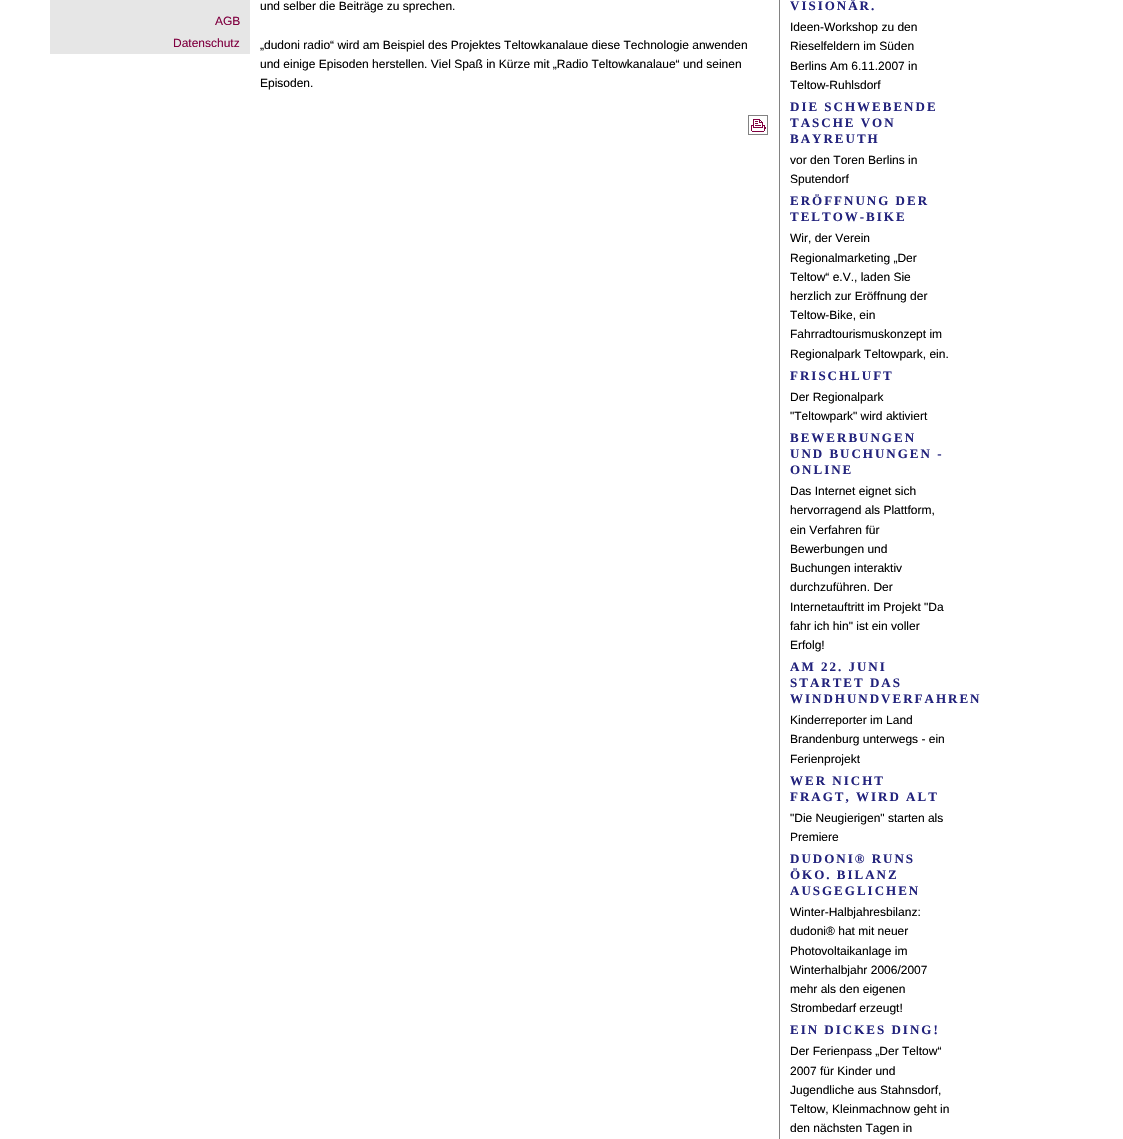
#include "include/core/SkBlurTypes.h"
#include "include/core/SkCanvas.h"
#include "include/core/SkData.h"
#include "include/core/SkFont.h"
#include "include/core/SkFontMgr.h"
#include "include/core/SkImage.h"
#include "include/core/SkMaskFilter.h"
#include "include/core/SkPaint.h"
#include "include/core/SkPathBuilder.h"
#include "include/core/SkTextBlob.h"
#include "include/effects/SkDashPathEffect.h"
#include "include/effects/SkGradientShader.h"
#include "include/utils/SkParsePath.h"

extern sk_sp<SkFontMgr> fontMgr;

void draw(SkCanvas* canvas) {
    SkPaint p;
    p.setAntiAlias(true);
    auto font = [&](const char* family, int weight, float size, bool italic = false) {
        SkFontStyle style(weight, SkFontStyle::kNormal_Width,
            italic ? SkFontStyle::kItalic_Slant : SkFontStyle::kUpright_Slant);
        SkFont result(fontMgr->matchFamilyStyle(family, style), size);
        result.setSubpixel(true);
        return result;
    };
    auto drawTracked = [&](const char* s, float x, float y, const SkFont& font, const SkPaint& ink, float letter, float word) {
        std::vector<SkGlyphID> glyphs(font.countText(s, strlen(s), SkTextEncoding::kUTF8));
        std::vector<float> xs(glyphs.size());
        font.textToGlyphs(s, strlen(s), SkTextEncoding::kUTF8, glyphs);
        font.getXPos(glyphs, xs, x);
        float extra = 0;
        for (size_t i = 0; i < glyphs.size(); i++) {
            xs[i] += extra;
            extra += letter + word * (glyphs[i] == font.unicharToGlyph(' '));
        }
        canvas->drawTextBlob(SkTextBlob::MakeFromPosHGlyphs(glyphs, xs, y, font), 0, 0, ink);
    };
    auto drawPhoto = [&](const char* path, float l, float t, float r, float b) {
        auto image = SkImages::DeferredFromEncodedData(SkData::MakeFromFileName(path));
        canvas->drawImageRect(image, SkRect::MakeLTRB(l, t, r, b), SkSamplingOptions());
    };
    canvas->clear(0xFFFFFFFF);
    p.setColor(0xFFE6E6E6);
    canvas->drawRect(SkRect::MakeLTRB(50, 0, 250, 54), p);
    auto font1 = font("Liberation Sans", 400, 12);
    p.setColor(0xFF800040);
    canvas->drawString("AGB", 215, 25, font1, p);
    canvas->drawString("Datenschutz", 173, 47, font1, p);
    p.setColor(0xFF000000);
    {
        const struct { const char* s; float x, y; } items[] = {
            {"und selber die Beiträge zu sprechen.", 260, 10},
            {"„dudoni radio“ wird am Beispiel des Projektes Teltowkanalaue diese Technologie anwenden", 260, 49},
            {"und einige Episoden herstellen. Viel Spaß in Kürze mit „Radio Teltowkanalaue“ und seinen", 260, 68},
            {"Episoden.", 260, 87},
        };
        for (auto [s, x, y] : items) {
            canvas->drawString(s, x, y, font1, p);
        }
    }
    drawPhoto("media/1.png", 748, 115, 768, 135);
    p.setColor(0xFF828282);
    canvas->drawRect(SkRect::MakeLTRB(779, 0, 780, 1139), p);
    auto font2 = font("Liberation Serif", 700, 13);
    p.setColor(0xFF22227C);
    drawTracked("VISIONÄR.", 790, 10, font2, p, 2, 0);
    p.setColor(0xFF000000);
    {
        const struct { const char* s; float x, y; } items[] = {
            {"Ideen-Workshop zu den", 790, 31},
            {"Rieselfeldern im Süden", 790, 50},
            {"Berlins Am 6.11.2007 in", 790, 70},
            {"Teltow-Ruhlsdorf", 790, 89},
        };
        for (auto [s, x, y] : items) {
            canvas->drawString(s, x, y, font1, p);
        }
    }
    p.setColor(0xFF22227C);
    {
        const struct { const char* s; float x, y; } items[] = {
            {"DIE SCHWEBENDE", 790, 111},
            {"TASCHE VON", 790, 127},
            {"BAYREUTH", 790, 143},
        };
        for (auto [s, x, y] : items) {
            drawTracked(s, x, y, font2, p, 2, 0);
        }
    }
    p.setColor(0xFF000000);
    canvas->drawString("vor den Toren Berlins in", 790, 164, font1, p);
    canvas->drawString("Sputendorf", 790, 183, font1, p);
    p.setColor(0xFF22227C);
    drawTracked("ERÖFFNUNG DER", 790, 205, font2, p, 2, 0);
    drawTracked("TELTOW-BIKE", 790, 221, font2, p, 2, 0);
    p.setColor(0xFF000000);
    {
        const struct { const char* s; float x, y; } items[] = {
            {"Wir, der Verein", 790, 242},
            {"Regionalmarketing „Der", 790, 262},
            {"Teltow“ e.V., laden Sie", 790, 281},
            {"herzlich zur Eröffnung der", 790, 300},
            {"Teltow-Bike, ein", 790, 319},
            {"Fahrradtourismuskonzept im", 790, 338},
            {"Regionalpark Teltowpark, ein.", 790, 358},
        };
        for (auto [s, x, y] : items) {
            canvas->drawString(s, x, y, font1, p);
        }
    }
    p.setColor(0xFF22227C);
    drawTracked("FRISCHLUFT", 790, 380, font2, p, 2, 0);
    p.setColor(0xFF000000);
    canvas->drawString("Der Regionalpark", 790, 401, font1, p);
    canvas->drawString("\"Teltowpark\" wird aktiviert", 790, 420, font1, p);
    p.setColor(0xFF22227C);
    {
        const struct { const char* s; float x, y; } items[] = {
            {"BEWERBUNGEN", 790, 442},
            {"UND BUCHUNGEN -", 790, 458},
            {"ONLINE", 790, 474},
        };
        for (auto [s, x, y] : items) {
            drawTracked(s, x, y, font2, p, 2, 0);
        }
    }
    p.setColor(0xFF000000);
    {
        const struct { const char* s; float x, y; } items[] = {
            {"Das Internet eignet sich", 790, 495},
            {"hervorragend als Plattform,", 790, 514},
            {"ein Verfahren für", 790, 534},
            {"Bewerbungen und", 790, 553},
            {"Buchungen interaktiv", 790, 572},
            {"durchzuführen. Der", 790, 591},
            {"Internetauftritt im Projekt \"Da", 790, 611},
            {"fahr ich hin\" ist ein voller", 790, 630},
            {"Erfolg!", 790, 649},
        };
        for (auto [s, x, y] : items) {
            canvas->drawString(s, x, y, font1, p);
        }
    }
    p.setColor(0xFF22227C);
    {
        const struct { const char* s; float x, y; } items[] = {
            {"AM 22. JUNI", 790, 671},
            {"STARTET DAS", 790, 687},
            {"WINDHUNDVERFAHREN", 790, 703},
        };
        for (auto [s, x, y] : items) {
            drawTracked(s, x, y, font2, p, 2, 0);
        }
    }
    p.setColor(0xFF000000);
    {
        const struct { const char* s; float x, y; } items[] = {
            {"Kinderreporter im Land", 790, 724},
            {"Brandenburg unterwegs - ein", 790, 743},
            {"Ferienprojekt", 790, 763},
        };
        for (auto [s, x, y] : items) {
            canvas->drawString(s, x, y, font1, p);
        }
    }
    p.setColor(0xFF22227C);
    drawTracked("WER NICHT", 790, 785, font2, p, 2, 0);
    drawTracked("FRAGT, WIRD ALT", 790, 801, font2, p, 2, 0);
    p.setColor(0xFF000000);
    canvas->drawString("\"Die Neugierigen\" starten als", 790, 822, font1, p);
    canvas->drawString("Premiere", 790, 841, font1, p);
    p.setColor(0xFF22227C);
    {
        const struct { const char* s; float x, y; } items[] = {
            {"DUDONI® RUNS", 790, 863},
            {"ÖKO. BILANZ", 790, 879},
            {"AUSGEGLICHEN", 790, 895},
        };
        for (auto [s, x, y] : items) {
            drawTracked(s, x, y, font2, p, 2, 0);
        }
    }
    p.setColor(0xFF000000);
    {
        const struct { const char* s; float x, y; } items[] = {
            {"Winter-Halbjahresbilanz:", 790, 916},
            {"dudoni® hat mit neuer", 790, 935},
            {"Photovoltaikanlage im", 790, 955},
            {"Winterhalbjahr 2006/2007", 790, 974},
            {"mehr als den eigenen", 790, 993},
            {"Strombedarf erzeugt!", 790, 1012},
        };
        for (auto [s, x, y] : items) {
            canvas->drawString(s, x, y, font1, p);
        }
    }
    p.setColor(0xFF22227C);
    drawTracked("EIN DICKES DING!", 790, 1034, font2, p, 2, 0);
    p.setColor(0xFF000000);
    {
        const struct { const char* s; float x, y; } items[] = {
            {"Der Ferienpass „Der Teltow“", 790, 1055},
            {"2007 für Kinder und", 790, 1075},
            {"Jugendliche aus Stahnsdorf,", 790, 1094},
            {"Teltow, Kleinmachnow geht in", 790, 1113},
            {"den nächsten Tagen in", 790, 1132},
        };
        for (auto [s, x, y] : items) {
            canvas->drawString(s, x, y, font1, p);
        }
    }
}
